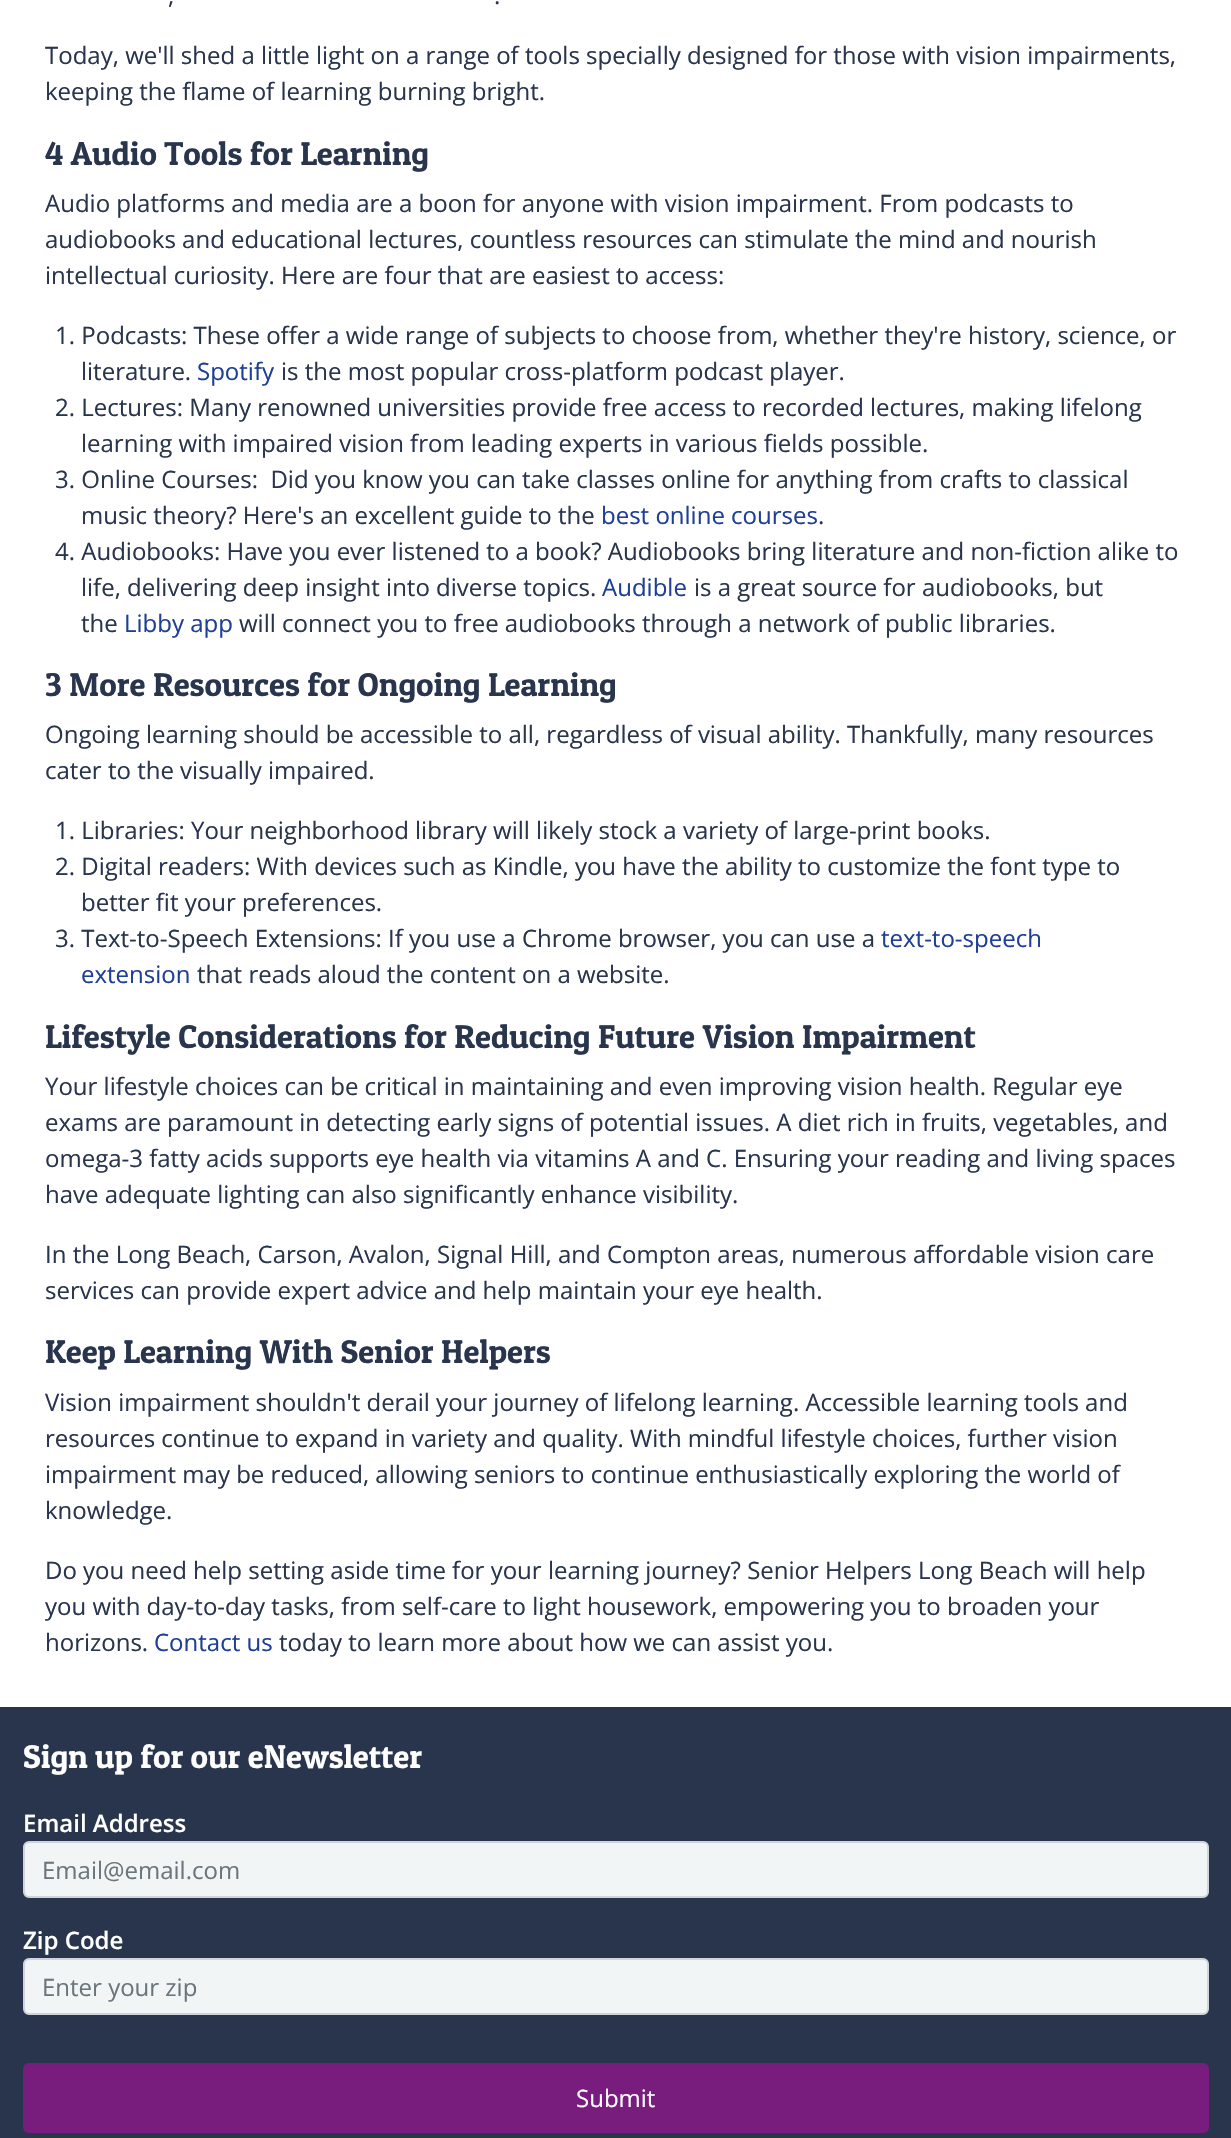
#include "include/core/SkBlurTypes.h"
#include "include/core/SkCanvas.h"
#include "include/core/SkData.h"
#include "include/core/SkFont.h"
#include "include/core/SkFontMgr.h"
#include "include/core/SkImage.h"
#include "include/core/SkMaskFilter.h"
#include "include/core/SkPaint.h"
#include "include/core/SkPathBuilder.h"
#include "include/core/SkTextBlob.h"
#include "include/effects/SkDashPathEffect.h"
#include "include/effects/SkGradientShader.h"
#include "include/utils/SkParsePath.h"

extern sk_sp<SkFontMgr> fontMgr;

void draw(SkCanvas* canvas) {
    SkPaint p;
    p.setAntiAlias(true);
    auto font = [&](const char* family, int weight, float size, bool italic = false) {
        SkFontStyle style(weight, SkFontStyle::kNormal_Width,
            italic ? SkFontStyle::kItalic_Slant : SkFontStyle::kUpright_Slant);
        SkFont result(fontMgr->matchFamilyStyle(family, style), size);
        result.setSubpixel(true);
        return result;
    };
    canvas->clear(0xFFFFFFFF);
    auto font1 = font("Open Sans", 400, 24);
    p.setColor(0xFF29354D);
    {
        const struct { const char* s; float x, y; } items[] = {
            {",", 168, 4},
            {".", 494, 4},
            {"Today, we'll shed a little light on a range of tools specially designed for those with vision impairments,", 45, 64},
            {"keeping the flame of learning burning bright.", 45, 100},
        };
        for (auto [s, x, y] : items) {
            canvas->drawString(s, x, y, font1, p);
        }
    }
    auto font2 = font("Patua One", 400, 33);
    canvas->drawString("4 Audio Tools for Learning", 45, 165, font2, p);
    {
        const struct { const char* s; float x, y; } items[] = {
            {"Audio platforms and media are a boon for anyone with vision impairment. From podcasts to", 45, 212},
            {"audiobooks and educational lectures, countless resources can stimulate the mind and nourish", 45, 248},
            {"intellectual curiosity. Here are four that are easiest to access:", 45, 284},
            {"1. Podcasts: These offer a wide range of subjects to choose from, whether they're history, science, or", 55, 344},
            {"literature.", 81, 380},
        };
        for (auto [s, x, y] : items) {
            canvas->drawString(s, x, y, font1, p);
        }
    }
    p.setColor(0xFF1E3F95);
    canvas->drawString("Spotify", 197, 380, font1, p);
    p.setColor(0xFF29354D);
    {
        const struct { const char* s; float x, y; } items[] = {
            {"is the most popular cross-platform podcast player.", 281, 380},
            {"2. Lectures: Many renowned universities provide free access to recorded lectures, making lifelong", 55, 416},
            {"learning with impaired vision from leading experts in various fields possible.", 81, 452},
            {"3. Online Courses:  Did you know you can take classes online for anything from crafts to classical", 55, 488},
            {"music theory? Here's an excellent guide to the", 81, 524},
        };
        for (auto [s, x, y] : items) {
            canvas->drawString(s, x, y, font1, p);
        }
    }
    p.setColor(0xFF1E3F95);
    canvas->drawString("best online courses", 601, 524, font1, p);
    p.setColor(0xFF29354D);
    {
        const struct { const char* s; float x, y; } items[] = {
            {".", 818, 524},
            {"4. Audiobooks: Have you ever listened to a book? Audiobooks bring literature and non-fiction alike to", 55, 560},
            {"life, delivering deep insight into diverse topics.", 81, 596},
        };
        for (auto [s, x, y] : items) {
            canvas->drawString(s, x, y, font1, p);
        }
    }
    p.setColor(0xFF1E3F95);
    canvas->drawString("Audible", 602, 596, font1, p);
    p.setColor(0xFF29354D);
    canvas->drawString("is a great source for audiobooks, but", 694, 596, font1, p);
    canvas->drawString("the", 81, 632, font1, p);
    p.setColor(0xFF1E3F95);
    canvas->drawString("Libby app", 124, 632, font1, p);
    p.setColor(0xFF29354D);
    canvas->drawString("will connect you to free audiobooks through a network of public libraries.", 239, 632, font1, p);
    canvas->drawString("3 More Resources for Ongoing Learning", 45, 696, font2, p);
    {
        const struct { const char* s; float x, y; } items[] = {
            {"Ongoing learning should be accessible to all, regardless of visual ability. Thankfully, many resources", 45, 743},
            {"cater to the visually impaired.", 45, 779},
            {"1. Libraries: Your neighborhood library will likely stock a variety of large-print books.", 55, 839},
            {"2. Digital readers: With devices such as Kindle, you have the ability to customize the font type to", 55, 875},
            {"better fit your preferences.", 81, 911},
            {"3. Text-to-Speech Extensions: If you use a Chrome browser, you can use a", 55, 947},
        };
        for (auto [s, x, y] : items) {
            canvas->drawString(s, x, y, font1, p);
        }
    }
    p.setColor(0xFF1E3F95);
    canvas->drawString("text-to-speech", 881, 947, font1, p);
    canvas->drawString("extension", 81, 983, font1, p);
    p.setColor(0xFF29354D);
    canvas->drawString("that reads aloud the content on a website.", 197, 983, font1, p);
    canvas->drawString("Lifestyle Considerations for Reducing Future Vision Impairment", 45, 1048, font2, p);
    {
        const struct { const char* s; float x, y; } items[] = {
            {"Your lifestyle choices can be critical in maintaining and even improving vision health. Regular eye", 45, 1095},
            {"exams are paramount in detecting early signs of potential issues. A diet rich in fruits, vegetables, and", 45, 1131},
            {"omega-3 fatty acids supports eye health via vitamins A and C. Ensuring your reading and living spaces", 45, 1167},
            {"have adequate lighting can also significantly enhance visibility.", 45, 1203},
            {"In the Long Beach, Carson, Avalon, Signal Hill, and Compton areas, numerous affordable vision care", 45, 1263},
            {"services can provide expert advice and help maintain your eye health.", 45, 1299},
        };
        for (auto [s, x, y] : items) {
            canvas->drawString(s, x, y, font1, p);
        }
    }
    canvas->drawString("Keep Learning With Senior Helpers", 45, 1363, font2, p);
    {
        const struct { const char* s; float x, y; } items[] = {
            {"Vision impairment shouldn't derail your journey of lifelong learning. Accessible learning tools and", 45, 1411},
            {"resources continue to expand in variety and quality. With mindful lifestyle choices, further vision", 45, 1447},
            {"impairment may be reduced, allowing seniors to continue enthusiastically exploring the world of", 45, 1483},
            {"knowledge.", 45, 1519},
            {"Do you need help setting aside time for your learning journey? Senior Helpers Long Beach will help", 45, 1579},
            {"you with day-to-day tasks, from self-care to light housework, empowering you to broaden your", 45, 1615},
            {"horizons.", 45, 1651},
        };
        for (auto [s, x, y] : items) {
            canvas->drawString(s, x, y, font1, p);
        }
    }
    p.setColor(0xFF1E3F95);
    canvas->drawString("Contact us", 154, 1651, font1, p);
    p.setColor(0xFF29354D);
    canvas->drawString("today to learn more about how we can assist you.", 279, 1651, font1, p);
    canvas->drawRect(SkRect::MakeLTRB(0, 1707, 1231, 2138), p);
    p.setColor(0xFFFFFFFF);
    canvas->drawString("Sign up for our eNewsletter", 23, 1768, font2, p);
    auto font3 = font("Open Sans", 600, 24);
    canvas->drawString("Email Address", 23, 1832, font3, p);
    p.setColor(0xFFF1F5F6);
    canvas->drawRoundRect(SkRect::MakeLTRB(24, 1842, 1208, 1897), 5, 5, p);
    p.setStyle(SkPaint::kStroke_Style);
    p.setStrokeWidth(2);
    p.setColor(0xFFCED4DA);
    canvas->drawRoundRect(SkRect::MakeLTRB(24, 1842, 1208, 1897), 5, 5, p);
    p.setStyle(SkPaint::kFill_Style);
    p.setColor(0xFF6C757D);
    canvas->drawString("Email@email.com", 42, 1879, font1, p);
    p.setColor(0xFFFFFFFF);
    canvas->drawString("Zip Code", 23, 1949, font3, p);
    p.setColor(0xFFF1F5F6);
    canvas->drawRoundRect(SkRect::MakeLTRB(24, 1959, 1208, 2014), 5, 5, p);
    p.setStyle(SkPaint::kStroke_Style);
    p.setColor(0xFFCED4DA);
    canvas->drawRoundRect(SkRect::MakeLTRB(24, 1959, 1208, 2014), 5, 5, p);
    p.setStyle(SkPaint::kFill_Style);
    p.setColor(0xFF6C757D);
    canvas->drawString("Enter your zip", 42, 1996, font1, p);
    p.setColor(0xFF781D7E);
    canvas->drawRoundRect(SkRect::MakeLTRB(24.5f, 2064.5f, 1207.5f, 2131.5f), 4.5f, 4.5f, p);
    p.setStyle(SkPaint::kStroke_Style);
    p.setStrokeWidth(3);
    canvas->drawRoundRect(SkRect::MakeLTRB(24.5f, 2064.5f, 1207.5f, 2131.5f), 4.5f, 4.5f, p);
    p.setStyle(SkPaint::kFill_Style);
    p.setColor(0xFFFFFFFF);
    canvas->drawString("Submit", 576, 2107, font1, p);
}
